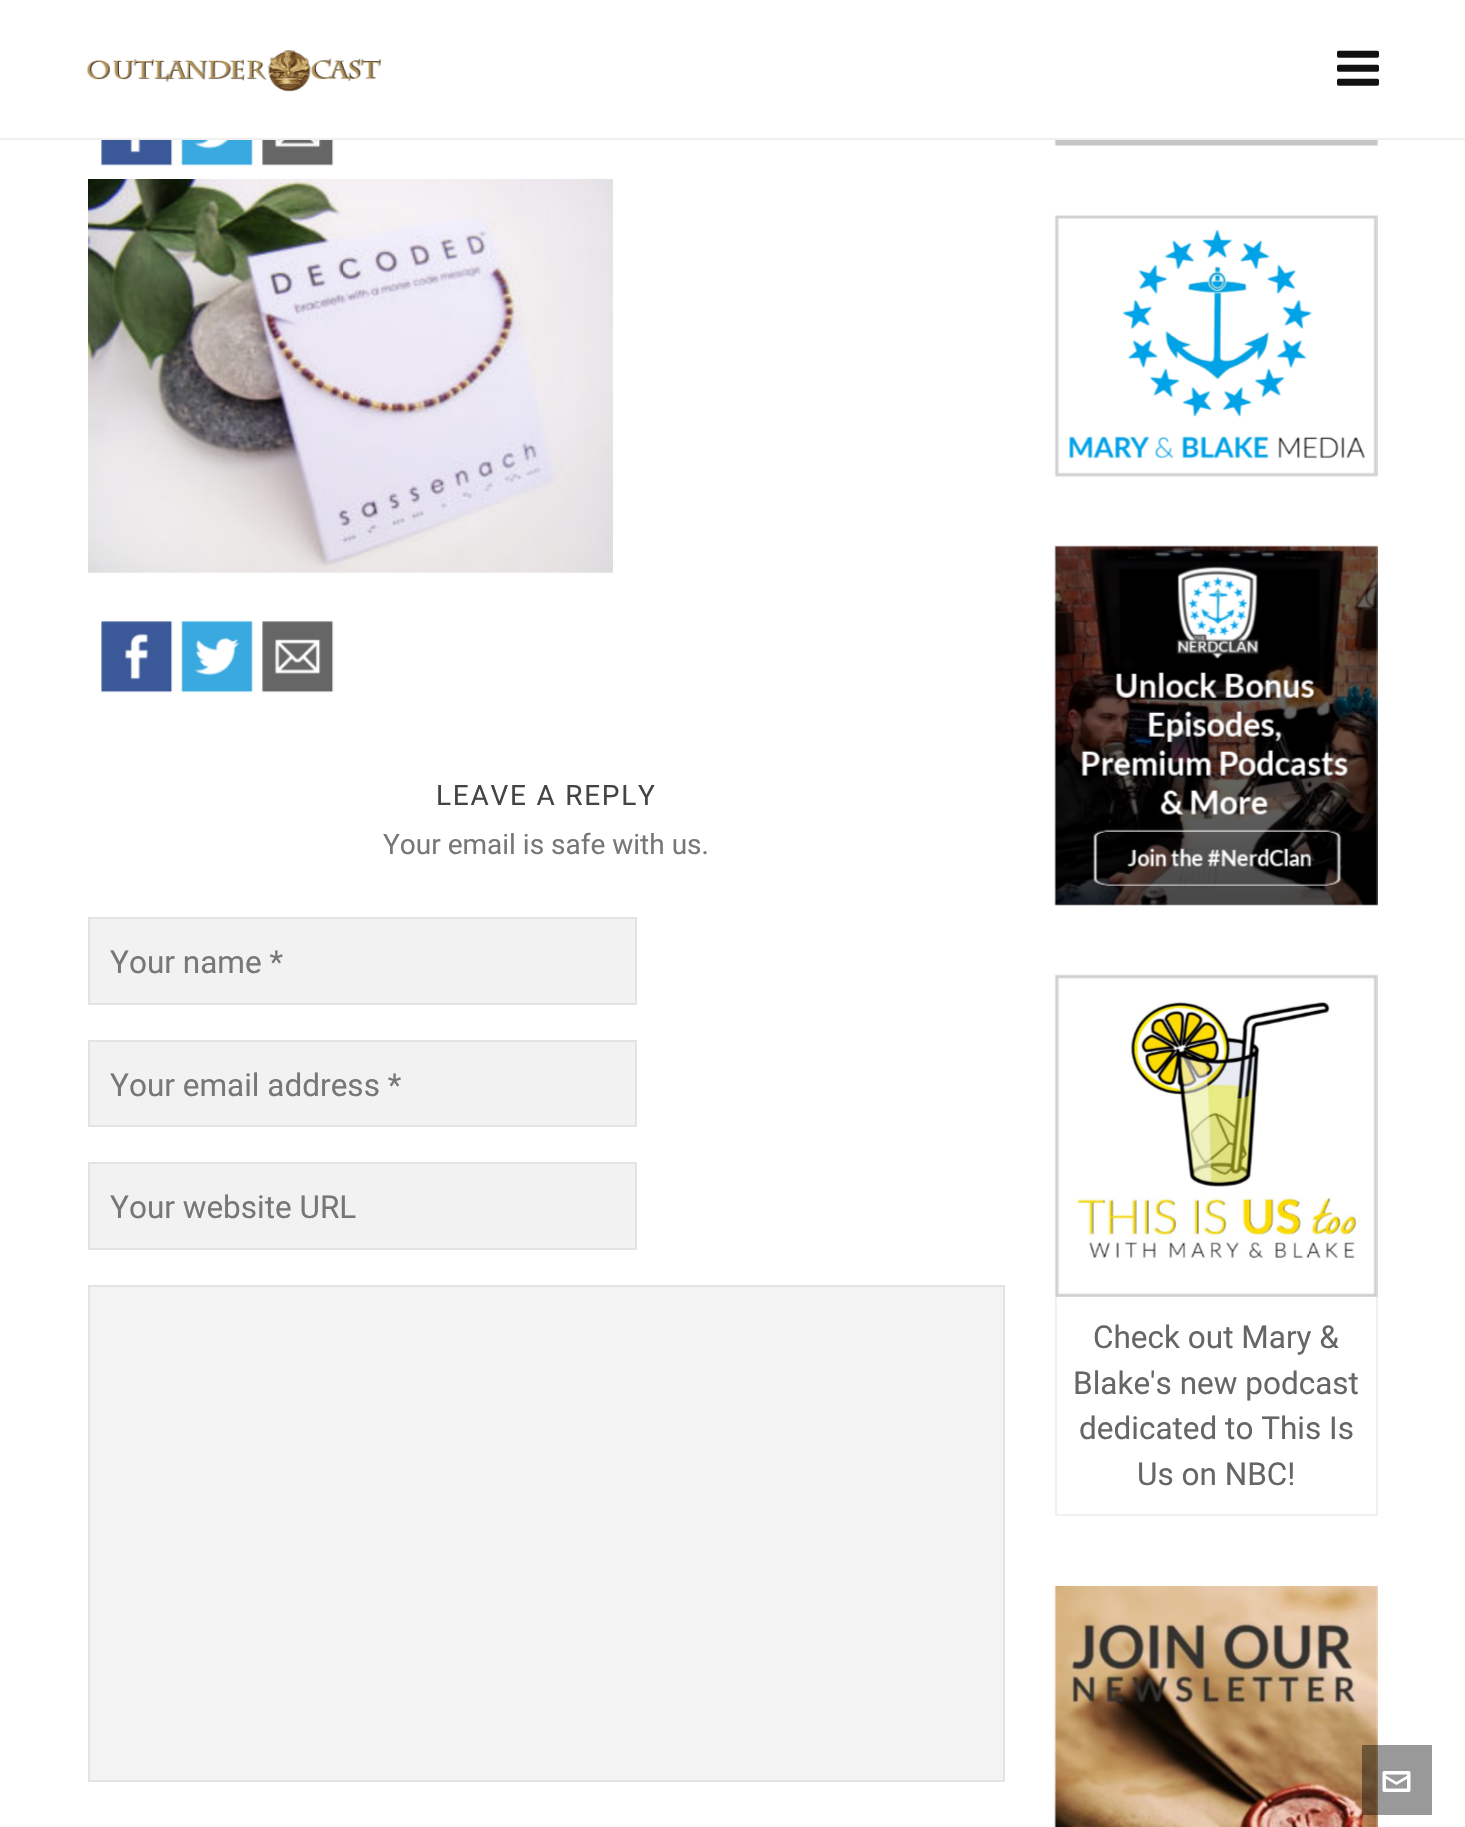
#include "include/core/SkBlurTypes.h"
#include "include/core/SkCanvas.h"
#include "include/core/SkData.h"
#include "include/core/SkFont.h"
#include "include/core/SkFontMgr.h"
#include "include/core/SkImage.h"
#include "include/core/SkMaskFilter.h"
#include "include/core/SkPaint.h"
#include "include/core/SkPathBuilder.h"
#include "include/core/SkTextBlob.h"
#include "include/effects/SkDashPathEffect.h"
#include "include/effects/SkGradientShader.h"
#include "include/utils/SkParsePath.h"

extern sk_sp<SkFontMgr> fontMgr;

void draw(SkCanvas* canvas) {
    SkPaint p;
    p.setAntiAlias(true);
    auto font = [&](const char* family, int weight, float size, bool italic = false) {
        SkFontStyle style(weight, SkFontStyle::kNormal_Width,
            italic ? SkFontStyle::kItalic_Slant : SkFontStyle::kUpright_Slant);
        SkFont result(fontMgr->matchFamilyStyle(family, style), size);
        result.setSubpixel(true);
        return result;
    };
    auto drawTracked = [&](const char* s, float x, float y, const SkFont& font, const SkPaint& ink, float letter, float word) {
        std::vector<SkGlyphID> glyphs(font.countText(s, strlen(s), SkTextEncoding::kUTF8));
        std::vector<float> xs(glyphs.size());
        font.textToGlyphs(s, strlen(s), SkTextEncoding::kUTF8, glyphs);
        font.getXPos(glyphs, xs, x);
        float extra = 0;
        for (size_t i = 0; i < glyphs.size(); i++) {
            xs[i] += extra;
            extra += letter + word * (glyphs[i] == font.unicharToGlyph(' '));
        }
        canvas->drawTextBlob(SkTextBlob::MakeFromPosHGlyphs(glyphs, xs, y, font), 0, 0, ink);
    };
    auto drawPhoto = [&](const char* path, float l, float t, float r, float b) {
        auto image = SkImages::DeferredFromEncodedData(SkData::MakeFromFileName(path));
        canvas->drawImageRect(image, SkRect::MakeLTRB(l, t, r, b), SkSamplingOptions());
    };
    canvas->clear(0xFFFFFFFF);
    p.setColor(0xFFF0F0F0);
    canvas->drawRect(SkRect::MakeLTRB(0, 138, 1465, 140), p);
    drawPhoto("media/1.png", 87, 50, 381, 92);
    drawPhoto("media/2.png", 1337, 50, 1379, 86);
    drawPhoto("media/3.png", 101, 140, 173, 166);
    drawPhoto("media/4.png", 181, 140, 253, 166);
    drawPhoto("media/5.png", 262, 140, 334, 166);
    drawPhoto("media/6.png", 88, 179, 613, 573);
    drawPhoto("media/7.png", 101, 621, 173, 693);
    drawPhoto("media/8.png", 181, 621, 253, 693);
    drawPhoto("media/9.png", 262, 621, 334, 693);
    auto font1 = font("Roboto", 400, 28);
    p.setColor(0xFF444444);
    drawTracked("LEAVE A REPLY", 436, 805, font1, p, 1.75f, 0);
    p.setColor(0xFF777777);
    canvas->drawString("Your email is safe with us.", 383, 854, font1, p);
    p.setColor(0xFFF2F2F2);
    canvas->drawRect(SkRect::MakeLTRB(89, 918, 636, 1004), p);
    p.setStyle(SkPaint::kStroke_Style);
    p.setStrokeWidth(2);
    p.setColor(0xFFE3E3E3);
    canvas->drawRect(SkRect::MakeLTRB(89, 918, 636, 1004), p);
    auto font2 = font("Roboto", 400, 31.5f);
    p.setStyle(SkPaint::kFill_Style);
    p.setColor(0xFF777777);
    canvas->drawString("Your name *", 110, 973, font2, p);
    p.setColor(0xFFF2F2F2);
    canvas->drawRect(SkRect::MakeLTRB(89, 1041, 636, 1126), p);
    p.setStyle(SkPaint::kStroke_Style);
    p.setColor(0xFFE3E3E3);
    canvas->drawRect(SkRect::MakeLTRB(89, 1041, 636, 1126), p);
    p.setStyle(SkPaint::kFill_Style);
    p.setColor(0xFF777777);
    canvas->drawString("Your email address *", 110, 1096, font2, p);
    p.setColor(0xFFF2F2F2);
    canvas->drawRect(SkRect::MakeLTRB(89, 1163, 636, 1249), p);
    p.setStyle(SkPaint::kStroke_Style);
    p.setColor(0xFFE3E3E3);
    canvas->drawRect(SkRect::MakeLTRB(89, 1163, 636, 1249), p);
    p.setStyle(SkPaint::kFill_Style);
    p.setColor(0xFF777777);
    canvas->drawString("Your website URL", 110, 1218, font2, p);
    p.setColor(0xFFF3F3F3);
    canvas->drawRect(SkRect::MakeLTRB(89, 1286, 1004, 1781), p);
    p.setStyle(SkPaint::kStroke_Style);
    p.setColor(0xFFE3E3E3);
    canvas->drawRect(SkRect::MakeLTRB(89, 1286, 1004, 1781), p);
    drawPhoto("media/10.png", 1054, 140, 1378, 146);
    drawPhoto("media/11.png", 1054, 215, 1378, 477);
    drawPhoto("media/12.png", 1054, 545, 1378, 906);
    drawPhoto("media/13.png", 1054, 974, 1378, 1298);
    p.setStyle(SkPaint::kFill_Style);
    {
        const struct { float l, t, r, b; SkColor color; } items[] = {
            {1057, 1297, 1376, 1298, 0xFFFFFFFF},
            {1376, 1297, 1378, 1516, 0xFFF0F0F0},
            {1055, 1514, 1377, 1516, 0xFFF0F0F0},
            {1055, 1297, 1057, 1516, 0xFFF0F0F0},
        };
        for (auto [l, t, r, b, color] : items) {
            p.setColor(color);
            canvas->drawRect(SkRect::MakeLTRB(l, t, r, b), p);
        }
    }
    p.setColor(0xFF666666);
    {
        const struct { const char* s; float x, y; } items[] = {
            {"Check out Mary &", 1093, 1348},
            {"Blake's new podcast", 1073, 1394},
            {"dedicated to This Is", 1079, 1439},
            {"Us on NBC!", 1137, 1485},
        };
        for (auto [s, x, y] : items) {
            canvas->drawString(s, x, y, font2, p);
        }
    }
    drawPhoto("media/14.png", 1054, 1586, 1378, 1827);
    p.setColor(0x66000000);
    canvas->drawRect(SkRect::MakeLTRB(1362, 1745, 1432, 1815), p);
    drawPhoto("media/15.png", 1382, 1771, 1411, 1792);
}
